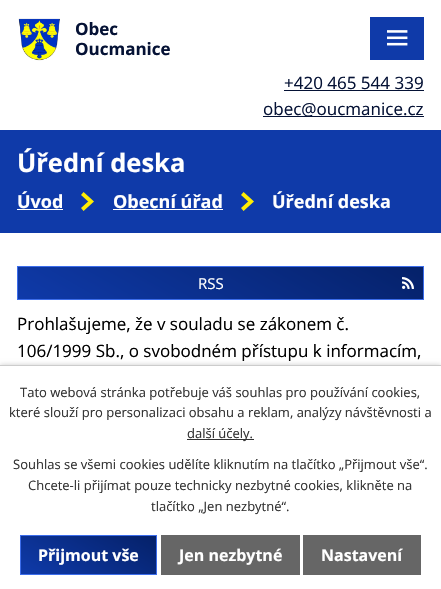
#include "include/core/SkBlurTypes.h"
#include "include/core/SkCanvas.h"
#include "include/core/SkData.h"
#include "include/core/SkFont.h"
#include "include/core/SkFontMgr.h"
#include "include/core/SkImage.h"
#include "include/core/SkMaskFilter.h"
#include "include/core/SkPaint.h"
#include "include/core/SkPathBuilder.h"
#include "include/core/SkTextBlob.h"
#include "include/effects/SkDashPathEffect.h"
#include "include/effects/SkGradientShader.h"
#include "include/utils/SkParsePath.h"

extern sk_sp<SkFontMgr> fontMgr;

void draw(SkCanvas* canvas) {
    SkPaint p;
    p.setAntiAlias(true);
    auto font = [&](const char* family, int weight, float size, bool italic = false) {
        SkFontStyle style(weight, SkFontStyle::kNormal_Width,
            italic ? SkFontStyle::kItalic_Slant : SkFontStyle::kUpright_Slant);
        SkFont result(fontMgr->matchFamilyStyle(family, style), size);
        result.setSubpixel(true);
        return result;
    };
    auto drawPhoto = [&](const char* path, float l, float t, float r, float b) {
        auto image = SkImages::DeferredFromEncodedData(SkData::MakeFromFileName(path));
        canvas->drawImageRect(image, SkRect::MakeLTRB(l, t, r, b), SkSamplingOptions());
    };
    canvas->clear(0xFFFFFFFF);
    p.setColor(0xFF0F3AA9);
    canvas->drawRect(SkRect::MakeLTRB(370, 17, 424, 60), p);
    drawPhoto("media/1.png", 387, 30, 408, 46);
    drawPhoto("media/2.png", 18, 18, 60, 61);
    auto font1 = font("Open Sans", 700, 17);
    p.setColor(0xFF051235);
    canvas->drawString("Obec", 75, 35, font1, p);
    canvas->drawString("Oucmanice", 75, 55, font1, p);
    auto font2 = font("Open Sans", 400, 17);
    canvas->drawString("+420 465 544 339", 284, 89, font2, p);
    canvas->drawRect(SkRect::MakeLTRB(284, 90, 424, 91), p);
    canvas->drawRect(SkRect::MakeLTRB(263, 116, 424, 117), p);
    canvas->drawString("obec@oucmanice.cz", 263, 115, font2, p);
    p.setColor(0xFF0F3AA9);
    canvas->drawRect(SkRect::MakeLTRB(0, 130, 441, 233), p);
    auto font3 = font("Open Sans", 700, 25.5f);
    p.setColor(0xFFFFFFFF);
    canvas->drawString("Úřední deska", 17, 172, font3, p);
    auto font4 = font("Open Sans", 700, 18);
    canvas->drawString("Úvod", 17, 208, font4, p);
    canvas->drawRect(SkRect::MakeLTRB(17, 209, 63, 210), p);
    drawPhoto("media/3.png", 81, 192, 94, 211);
    canvas->drawString("Obecní úřad", 113, 208, font4, p);
    canvas->drawRect(SkRect::MakeLTRB(113, 209, 223, 210), p);
    drawPhoto("media/3.png", 241, 192, 254, 211);
    canvas->drawString("Úřední deska", 272, 208, font4, p);
    {
        const SkColor colors[] = {0xFF0F3AA9, 0xFF052169};
        const float stops[] = {0, 1};
        const SkPoint ends[] = {{163, 383}, {278, 183}};
        p.setShader(SkGradientShader::MakeLinear(ends, colors, stops, 2, SkTileMode::kClamp));
        p.setAlpha(255);
    }
    canvas->drawRect(SkRect::MakeLTRB(18, 267, 423, 299), p);
    p.setStyle(SkPaint::kStroke_Style);
    p.setStrokeWidth(1);
    p.setShader(nullptr);
    p.setColor(0xFF3C6DEB);
    canvas->drawRect(SkRect::MakeLTRB(17.5f, 266.5f, 423.5f, 299.5f), p);
    auto font5 = font("Open Sans", 400, 15);
    p.setStyle(SkPaint::kFill_Style);
    p.setColor(0xFFFFFFFF);
    canvas->drawString("RSS", 198, 289, font5, p);
    drawPhoto("media/4.png", 402, 277, 414, 289);
    p.setColor(0xFF000000);
    canvas->drawString("Prohlašujeme, že v souladu se zákonem č.", 17, 330, font2, p);
    canvas->drawString("106/1999 Sb., o svobodném přístupu k informacím,", 17, 357, font2, p);
    p.setColor(0x33000000);
    p.setMaskFilter(SkMaskFilter::MakeBlur(kNormal_SkBlurStyle, 2.5f));
    canvas->drawRect(SkRect::MakeLTRB(0, 365, 441, 589), p);
    p.setMaskFilter(nullptr);
    p.setColor(0xFFFFFFFF);
    canvas->drawRect(SkRect::MakeLTRB(0, 366, 441, 589), p);
    p.setColor(0xFFCCCCCC);
    canvas->drawRect(SkRect::MakeLTRB(0, 365, 441, 366), p);
    auto font6 = font("Open Sans", 400, 13);
    p.setColor(0xFF333333);
    canvas->drawString("Tato webová stránka potřebuje váš souhlas pro používání cookies,", 20, 397, font6, p);
    canvas->drawString("které slouží pro personalizaci obsahu a reklam, analýzy návštěvnosti a", 9, 417, font6, p);
    canvas->drawRect(SkRect::MakeLTRB(187, 439, 254, 440), p);
    {
        const struct { const char* s; float x, y; } items[] = {
            {"další účely.", 187, 438},
            {"Souhlas se všemi cookies udělíte kliknutím na tlačítko „Přijmout vše“.", 13, 469},
            {"Chcete-li přijímat pouze technicky nezbytné cookies, klikněte na", 28, 490},
            {"tlačítko „Jen nezbytné“.", 151, 511},
        };
        for (auto [s, x, y] : items) {
            canvas->drawString(s, x, y, font6, p);
        }
    }
    {
        const SkColor colors[] = {0xFF0F3AA9, 0xFF052169};
        const float stops[] = {0, 1};
        const SkPoint ends[] = {{63, 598}, {114, 512}};
        p.setShader(SkGradientShader::MakeLinear(ends, colors, stops, 2, SkTileMode::kClamp));
        p.setAlpha(255);
    }
    canvas->drawRect(SkRect::MakeLTRB(21, 536, 156, 574), p);
    p.setStyle(SkPaint::kStroke_Style);
    p.setShader(nullptr);
    p.setColor(0xFF3C6DEB);
    canvas->drawRect(SkRect::MakeLTRB(20.5f, 535.5f, 156.5f, 574.5f), p);
    auto font7 = font("Open Sans", 700, 16);
    p.setStyle(SkPaint::kFill_Style);
    p.setColor(0xFFFFFFFF);
    canvas->drawString("Přijmout vše", 38, 561, font7, p);
    p.setColor(0xFF666666);
    canvas->drawRect(SkRect::MakeLTRB(161, 535, 300, 575), p);
    p.setColor(0xFFFFFFFF);
    canvas->drawString("Jen nezbytné", 179, 561, font7, p);
    p.setColor(0xFF666666);
    canvas->drawRect(SkRect::MakeLTRB(303, 535, 421, 575), p);
    p.setColor(0xFFFFFFFF);
    canvas->drawString("Nastavení", 321, 561, font7, p);
}
